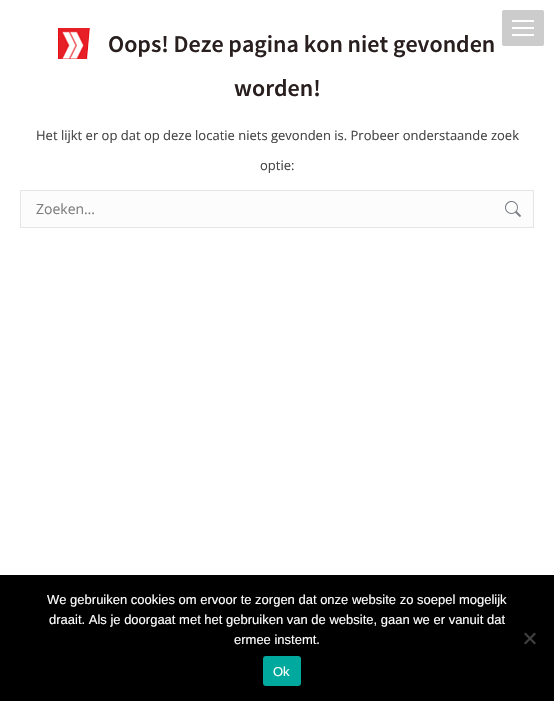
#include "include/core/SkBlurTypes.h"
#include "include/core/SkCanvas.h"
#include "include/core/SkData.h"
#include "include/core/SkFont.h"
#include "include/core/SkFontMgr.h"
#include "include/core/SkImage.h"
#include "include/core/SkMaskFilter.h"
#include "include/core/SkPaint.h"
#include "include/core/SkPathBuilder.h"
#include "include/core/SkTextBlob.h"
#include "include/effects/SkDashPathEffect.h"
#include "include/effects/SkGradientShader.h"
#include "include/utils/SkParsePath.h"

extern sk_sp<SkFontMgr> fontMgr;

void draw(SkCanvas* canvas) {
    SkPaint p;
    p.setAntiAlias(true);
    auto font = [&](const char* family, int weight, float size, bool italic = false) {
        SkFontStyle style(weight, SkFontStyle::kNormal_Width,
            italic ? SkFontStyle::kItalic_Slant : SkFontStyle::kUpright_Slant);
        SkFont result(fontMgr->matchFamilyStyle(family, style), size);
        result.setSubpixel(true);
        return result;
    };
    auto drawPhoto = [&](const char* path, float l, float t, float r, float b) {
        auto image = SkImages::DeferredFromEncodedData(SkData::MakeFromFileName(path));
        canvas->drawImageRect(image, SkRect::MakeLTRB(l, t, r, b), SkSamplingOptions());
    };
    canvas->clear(0xFFFFFFFF);
    p.setColor(0xFFCCCCCC);
    canvas->drawRoundRect(SkRect::MakeLTRB(502, 10, 544, 46), 2, 2, p);
    {
        const struct { float l, t, r, b; SkColor color; } items[] = {
            {512, 20, 534, 22, 0xFFFFFFFF},
            {512, 27, 534, 29, 0xFFFFFFFF},
            {512, 34, 534, 36, 0xFFFFFFFF},
        };
        for (auto [l, t, r, b, color] : items) {
            p.setColor(color);
            canvas->drawRect(SkRect::MakeLTRB(l, t, r, b), p);
        }
    }
    drawPhoto("media/1.png", 58, 28, 90, 59);
    auto font1 = font("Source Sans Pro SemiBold", 600, 24);
    p.setColor(0xFF281F1E);
    canvas->drawString("Oops! Deze pagina kon niet gevonden", 108, 52, font1, p);
    canvas->drawString("worden!", 234, 96, font1, p);
    auto font2 = font("Open Sans", 400, 13);
    p.setColor(0xFF444444);
    canvas->drawString("Het lijkt er op dat op deze locatie niets gevonden is. Probeer onderstaande zoek", 36, 140, font2, p);
    canvas->drawString("optie:", 260, 170, font2, p);
    p.setColor(0xFFFCFCFC);
    canvas->drawRect(SkRect::MakeLTRB(20.5f, 190.5f, 533.5f, 227.5f), p);
    p.setStyle(SkPaint::kStroke_Style);
    p.setStrokeWidth(1);
    p.setColor(0xFFE4E5E7);
    canvas->drawRect(SkRect::MakeLTRB(20.5f, 190.5f, 533.5f, 227.5f), p);
    auto font3 = font("Open Sans", 400, 14);
    p.setStyle(SkPaint::kFill_Style);
    p.setColor(0xFF7E7E7E);
    canvas->drawString("Zoeken…", 36, 214, font3, p);
    drawPhoto("media/2.png", 505, 201, 521, 217);
    p.setColor(0xFF000000);
    canvas->drawRect(SkRect::MakeLTRB(0, 575, 554, 701), p);
    auto font4 = font("Liberation Sans", 400, 13);
    p.setColor(0xFFFFFFFF);
    {
        const struct { const char* s; float x, y; } items[] = {
            {"We gebruiken cookies om ervoor te zorgen dat onze website zo soepel mogelijk", 47, 604},
            {"draait. Als je doorgaat met het gebruiken van de website, gaan we er vanuit dat", 49, 624},
            {"ermee instemt.", 234, 644},
        };
        for (auto [s, x, y] : items) {
            canvas->drawString(s, x, y, font4, p);
        }
    }
    p.setColor(0xFF404040);
    canvas->drawPath(SkPathBuilder().moveTo(534.5f, 632.5f).lineTo(536, 634).lineTo(525.5f, 644.5f).lineTo(524, 643).close().detach(), p);
    canvas->drawPath(SkPathBuilder().moveTo(524, 634).lineTo(525.5f, 632.5f).lineTo(536, 643).lineTo(534.5f, 644.5f).close().detach(), p);
    p.setColor(0xFF00A99D);
    canvas->drawRoundRect(SkRect::MakeLTRB(263, 656, 301, 686), 3, 3, p);
    p.setColor(0xFFFFFFFF);
    canvas->drawString("Ok", 273, 676, font4, p);
}
